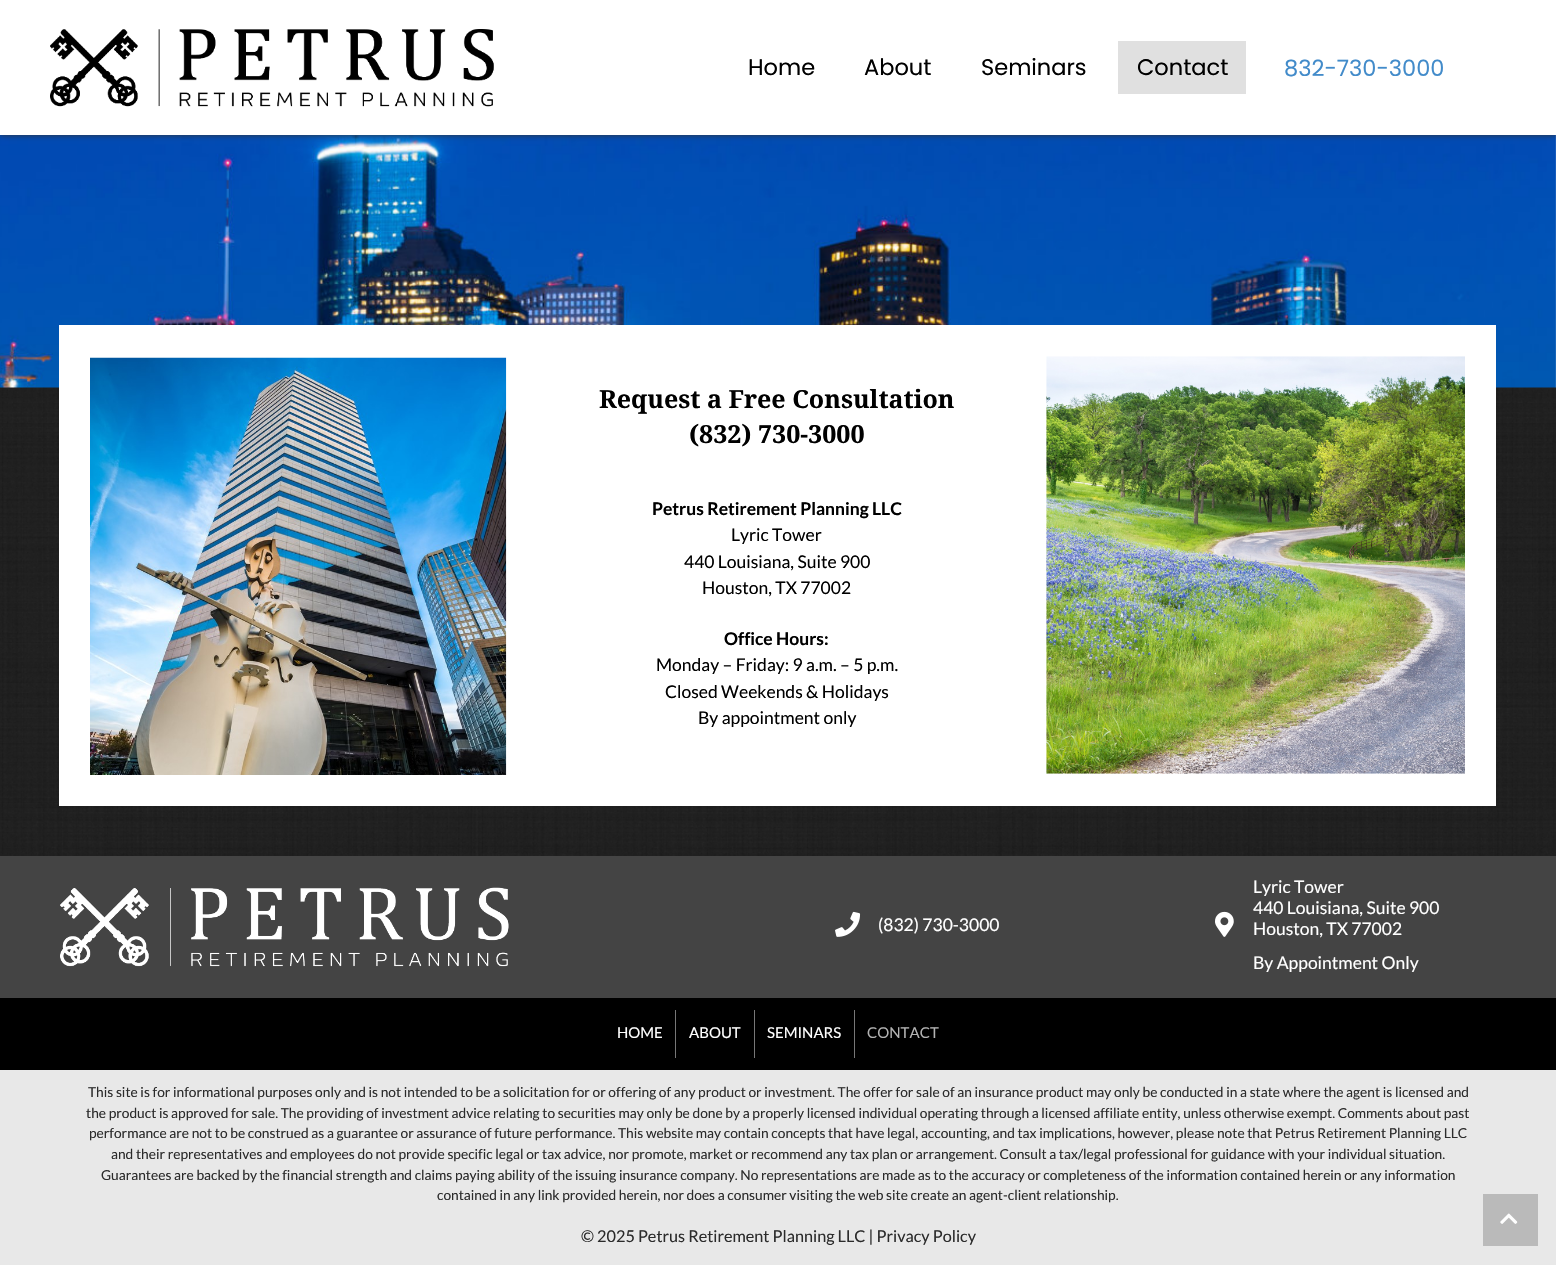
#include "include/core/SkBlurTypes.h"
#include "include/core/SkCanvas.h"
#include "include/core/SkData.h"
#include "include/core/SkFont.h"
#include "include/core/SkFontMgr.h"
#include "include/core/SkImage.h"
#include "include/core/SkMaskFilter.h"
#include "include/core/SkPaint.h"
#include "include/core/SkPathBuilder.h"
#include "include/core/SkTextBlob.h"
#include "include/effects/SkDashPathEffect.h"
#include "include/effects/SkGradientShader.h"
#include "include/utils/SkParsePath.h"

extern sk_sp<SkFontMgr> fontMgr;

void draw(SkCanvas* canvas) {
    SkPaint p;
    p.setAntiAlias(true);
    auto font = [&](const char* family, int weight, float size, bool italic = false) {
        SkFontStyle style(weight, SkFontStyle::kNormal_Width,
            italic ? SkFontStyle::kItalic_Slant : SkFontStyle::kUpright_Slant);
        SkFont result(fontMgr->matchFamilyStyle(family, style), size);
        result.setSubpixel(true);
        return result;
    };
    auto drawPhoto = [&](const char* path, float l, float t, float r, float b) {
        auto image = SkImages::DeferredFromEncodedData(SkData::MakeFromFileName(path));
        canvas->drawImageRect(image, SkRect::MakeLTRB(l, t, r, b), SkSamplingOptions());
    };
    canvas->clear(0xFFFFFFFF);
    drawPhoto("media/2.png", 0, 135, 1556, 388);
    p.setColor(0xFF333333);
    p.setMaskFilter(SkMaskFilter::MakeBlur(kNormal_SkBlurStyle, 3));
    canvas->drawRect(SkRect::MakeLTRB(0, 0, 1556, 135), p);
    p.setMaskFilter(nullptr);
    p.setColor(0xFFFFFFFF);
    canvas->drawRect(SkRect::MakeLTRB(0, 0, 1556, 135), p);
    drawPhoto("media/1.png", 50, 29, 494, 107);
    auto font1 = font("Poppins", 400, 22.5f);
    p.setColor(0xFF000000);
    {
        const struct { const char* s; float x, y; } items[] = {
            {"Home", 748, 75},
            {"About", 864, 75},
            {"Seminars", 981, 75},
        };
        for (auto [s, x, y] : items) {
            canvas->drawString(s, x, y, font1, p);
        }
    }
    p.setColor(0xFFE0E0E0);
    canvas->drawRect(SkRect::MakeLTRB(1118, 41, 1246, 94), p);
    p.setColor(0xFF000000);
    canvas->drawString("Contact", 1137, 75, font1, p);
    p.setColor(0xFF428BCA);
    canvas->drawString("832-730-3000", 1284, 76, font1, p);
    drawPhoto("media/3.png", 0, 387, 1556, 856);
    p.setColor(0xFFFFFFFF);
    canvas->drawRect(SkRect::MakeLTRB(59, 325, 1496, 806), p);
    drawPhoto("media/4.png", 90, 357, 507, 775);
    auto font2 = font("Noto Serif", 700, 25);
    p.setColor(0xFF000000);
    canvas->drawString("Request a Free Consultation", 599, 408, font2, p);
    canvas->drawString("(832) 730-3000", 689, 443, font2, p);
    auto font3 = font("Lato", 700, 17.5f);
    canvas->drawString("Petrus Retirement Planning LLC", 652, 515, font3, p);
    auto font4 = font("Lato", 400, 17.5f);
    {
        const struct { const char* s; float x, y; } items[] = {
            {"Lyric Tower", 731, 541},
            {"440 Louisiana, Suite 900", 684, 568},
            {"Houston, TX 77002", 702, 594},
        };
        for (auto [s, x, y] : items) {
            canvas->drawString(s, x, y, font4, p);
        }
    }
    canvas->drawString("Office Hours:", 724, 645, font3, p);
    {
        const struct { const char* s; float x, y; } items[] = {
            {"Monday – Friday: 9 a.m. – 5 p.m.", 656, 671},
            {"Closed Weekends & Holidays", 665, 698},
            {"By appointment only", 698, 724},
        };
        for (auto [s, x, y] : items) {
            canvas->drawString(s, x, y, font4, p);
        }
    }
    drawPhoto("media/5.png", 1046, 356, 1465, 774);
    p.setColor(0xFF444444);
    canvas->drawRect(SkRect::MakeLTRB(0, 856, 1556, 998), p);
    drawPhoto("media/6.png", 60, 887, 509, 967);
    drawPhoto("media/7.png", 835, 911, 861, 937);
    p.setColor(0xFFFFFFFF);
    canvas->drawString("(832) 730-3000", 878, 931, font4, p);
    drawPhoto("media/8.png", 1215, 911, 1234, 937);
    {
        const struct { const char* s; float x, y; } items[] = {
            {"Lyric Tower", 1253, 893},
            {"440 Louisiana, Suite 900", 1253, 914},
            {"Houston, TX 77002", 1253, 935},
            {"By Appointment Only", 1253, 969},
        };
        for (auto [s, x, y] : items) {
            canvas->drawString(s, x, y, font4, p);
        }
    }
    p.setColor(0xFF000000);
    canvas->drawRect(SkRect::MakeLTRB(0, 998, 1556, 1070), p);
    auto font5 = font("Lato", 400, 15);
    p.setColor(0xFFFFFFFF);
    canvas->drawString("HOME", 617, 1038, font5, p);
    p.setColor(0xFF777777);
    canvas->drawRect(SkRect::MakeLTRB(675, 1010, 676, 1058), p);
    p.setColor(0xFFFFFFFF);
    canvas->drawString("ABOUT", 689, 1038, font5, p);
    p.setColor(0xFF777777);
    canvas->drawRect(SkRect::MakeLTRB(754, 1010, 755, 1058), p);
    p.setColor(0xFFFFFFFF);
    canvas->drawString("SEMINARS", 767, 1038, font5, p);
    p.setColor(0xFF777777);
    canvas->drawRect(SkRect::MakeLTRB(854, 1010, 855, 1058), p);
    p.setColor(0xFFB3B3B3);
    canvas->drawString("CONTACT", 867, 1038, font5, p);
    p.setColor(0xFFE8E8E8);
    canvas->drawRect(SkRect::MakeLTRB(0, 1070, 1556, 1265), p);
    auto font6 = font("Lato", 400, 13.75f);
    p.setColor(0xFF2B2B2B);
    {
        const struct { const char* s; float x, y; } items[] = {
            {"This site is for informational purposes only and is not intended to be a solicitation for or offering of any product or investment. The offer for sale of an insurance product may only be conducted in a state where the agent is licensed and", 88, 1097},
            {"the product is approved for sale. The providing of investment advice relating to securities may only be done by a properly licensed individual operating through a licensed affiliate entity, unless otherwise exempt. Comments about past", 86, 1118},
            {"performance are not to be construed as a guarantee or assurance of future performance. This website may contain concepts that have legal, accounting, and tax implications, however, please note that Petrus Retirement Planning LLC", 89, 1138},
            {"and their representatives and employees do not provide specific legal or tax advice, nor promote, market or recommend any tax plan or arrangement. Consult a tax/legal professional for guidance with your individual situation.", 111, 1159},
            {"Guarantees are backed by the financial strength and claims paying ability of the issuing insurance company. No representations are made as to the accuracy or completeness of the information contained herein or any information", 101, 1180},
            {"contained in any link provided herein, nor does a consumer visiting the web site create an agent-client relationship.", 437, 1200},
        };
        for (auto [s, x, y] : items) {
            canvas->drawString(s, x, y, font6, p);
        }
    }
    auto font7 = font("Lato", 400, 16.25f);
    canvas->drawString("© 2025 Petrus Retirement Planning LLC | Privacy Policy", 581, 1242, font7, p);
    p.setColor(0xFFBABABA);
    canvas->drawRect(SkRect::MakeLTRB(1483, 1194, 1538, 1246), p);
    drawPhoto("media/9.png", 1500, 1213, 1518, 1224);
}
